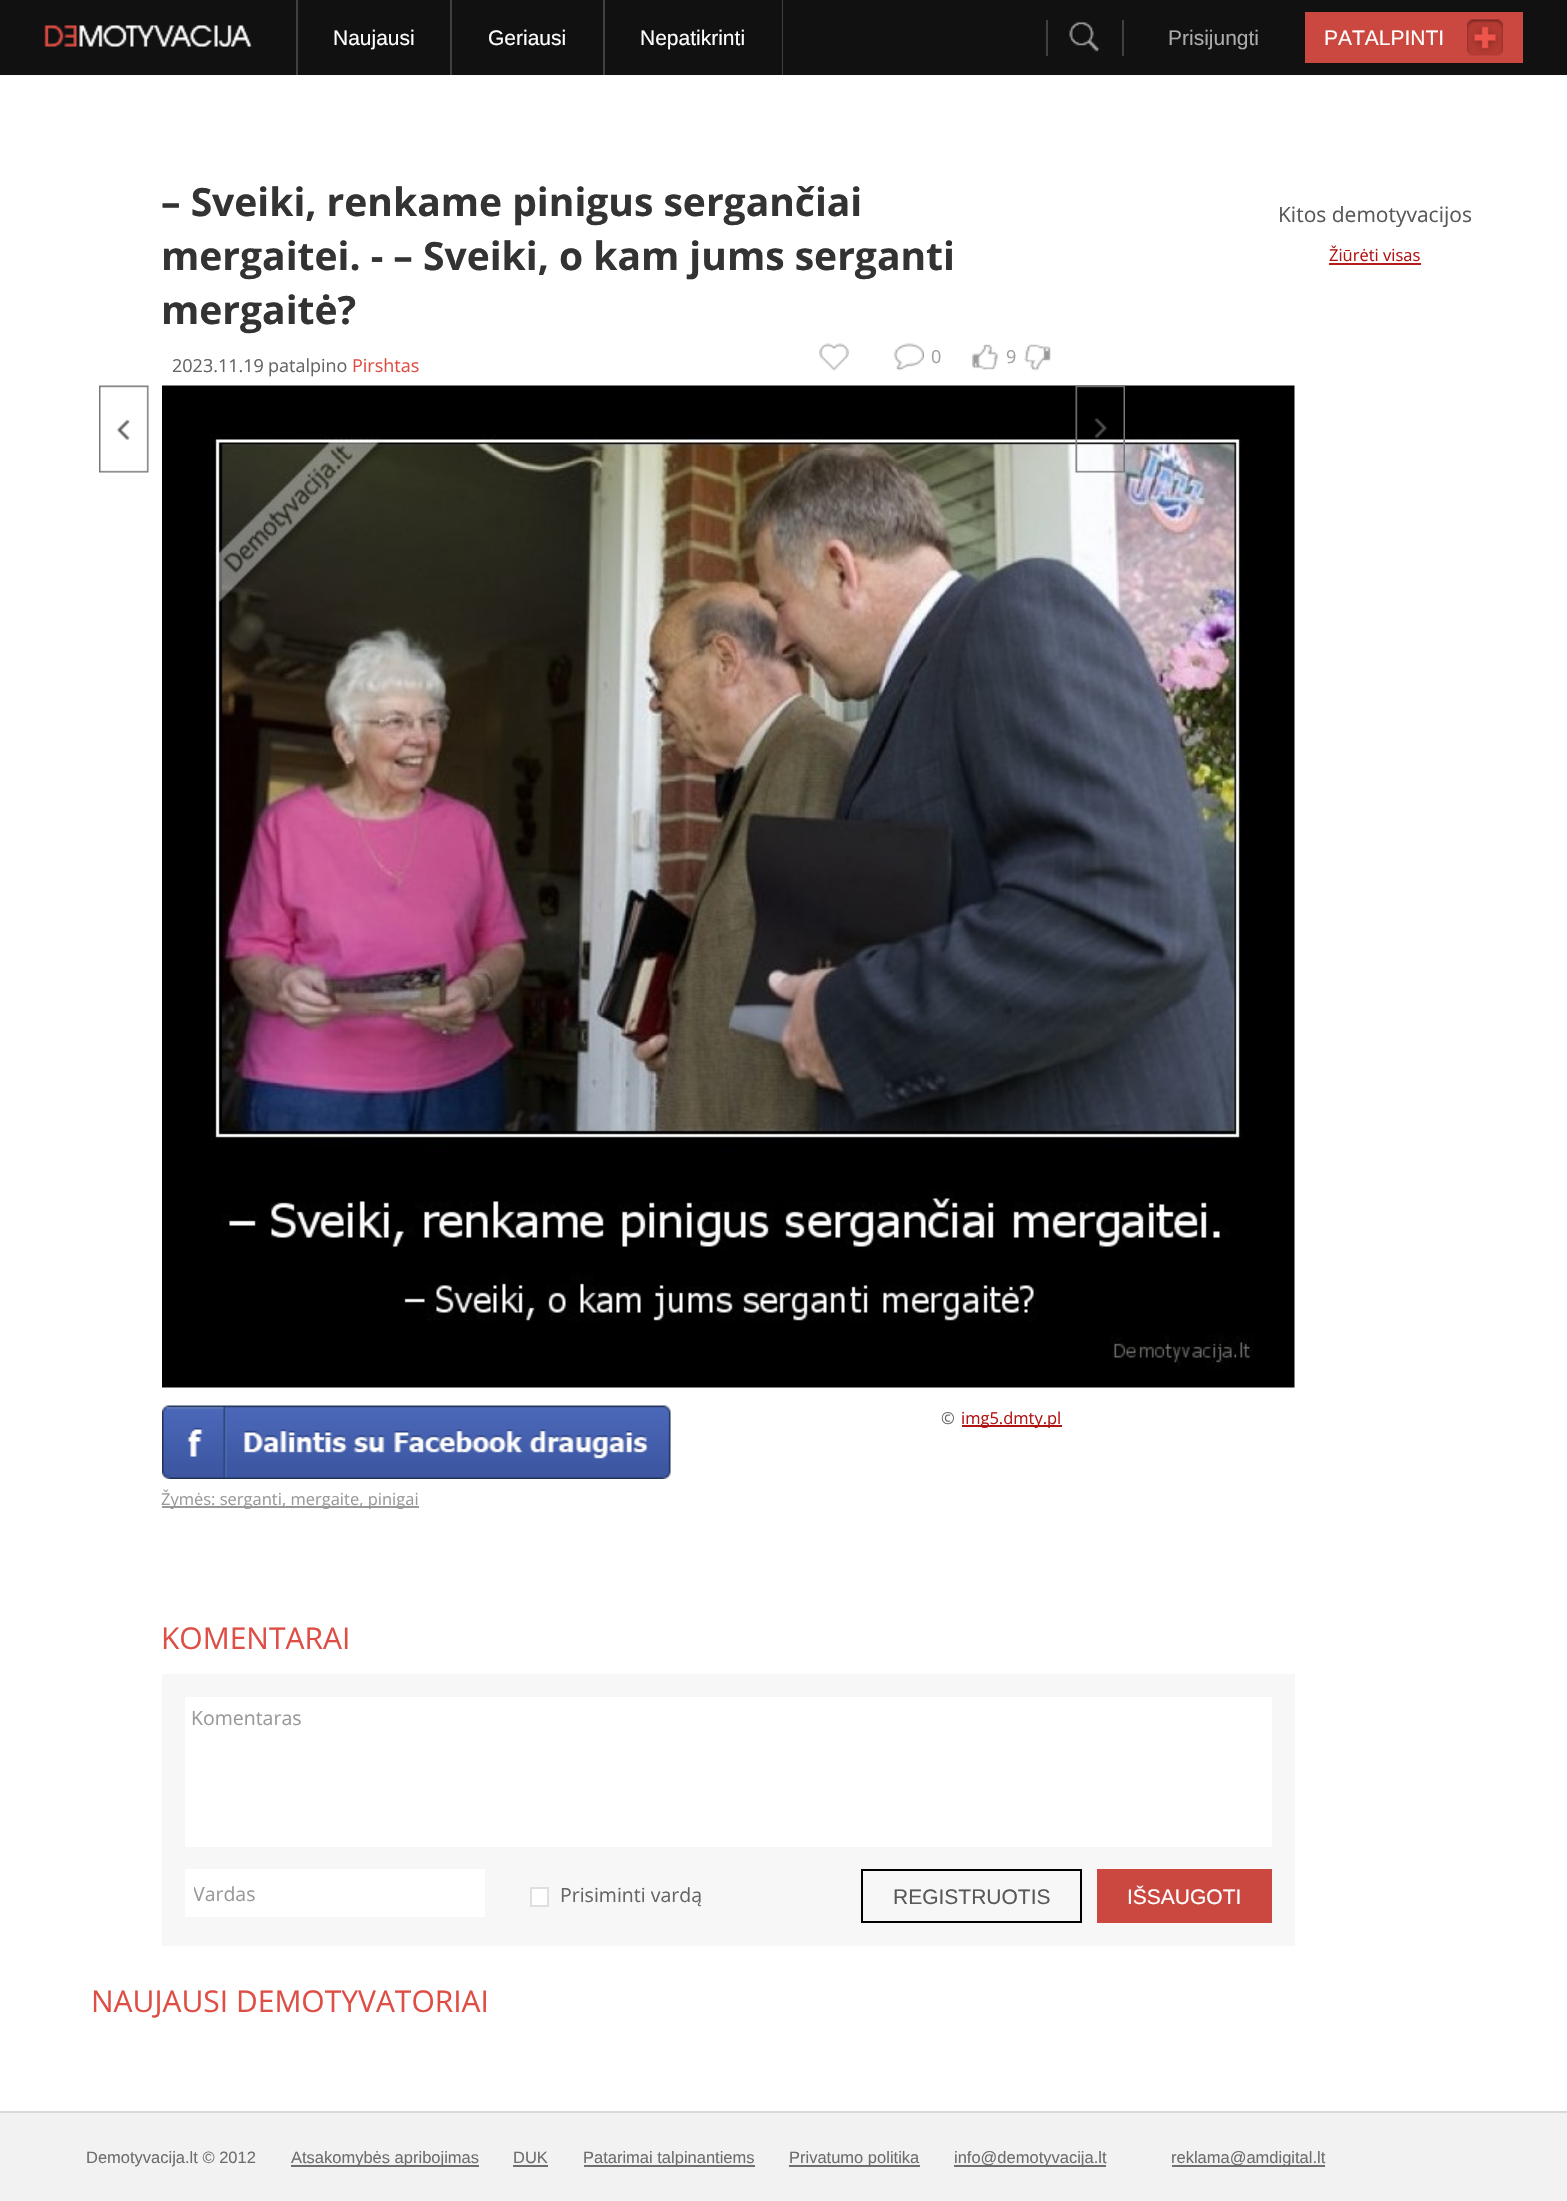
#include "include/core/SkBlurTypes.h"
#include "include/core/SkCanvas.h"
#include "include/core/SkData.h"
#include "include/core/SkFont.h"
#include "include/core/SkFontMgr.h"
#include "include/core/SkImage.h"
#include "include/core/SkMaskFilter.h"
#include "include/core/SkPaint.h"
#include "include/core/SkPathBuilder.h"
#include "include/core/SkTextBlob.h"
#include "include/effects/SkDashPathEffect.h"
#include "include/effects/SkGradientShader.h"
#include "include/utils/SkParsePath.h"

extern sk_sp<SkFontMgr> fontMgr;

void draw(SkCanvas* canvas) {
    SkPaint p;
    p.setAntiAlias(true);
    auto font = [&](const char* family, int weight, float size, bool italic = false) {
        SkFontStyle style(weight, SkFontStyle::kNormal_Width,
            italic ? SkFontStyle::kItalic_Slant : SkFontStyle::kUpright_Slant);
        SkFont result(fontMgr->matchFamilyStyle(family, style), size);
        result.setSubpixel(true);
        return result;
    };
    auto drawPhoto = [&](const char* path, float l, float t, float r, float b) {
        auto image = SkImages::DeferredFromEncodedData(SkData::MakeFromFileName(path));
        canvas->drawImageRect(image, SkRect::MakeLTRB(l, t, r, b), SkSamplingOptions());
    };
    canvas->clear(0xFFFFFFFF);
    p.setColor(0xFF111111);
    canvas->drawRect(SkRect::MakeLTRB(0, 0, 1567, 75), p);
    drawPhoto("media/1.png", 44, 25, 252, 47);
    p.setColor(0xFF404040);
    canvas->drawRect(SkRect::MakeLTRB(296, 0, 298, 75), p);
    canvas->drawRect(SkRect::MakeLTRB(450, 0, 452, 75), p);
    auto font1 = font("Liberation Sans", 400, 21);
    p.setColor(0xFFFFFFFF);
    canvas->drawString("Naujausi", 333, 45, font1, p);
    p.setColor(0xFF404040);
    canvas->drawRect(SkRect::MakeLTRB(603, 0, 605, 75), p);
    p.setColor(0xFFFFFFFF);
    canvas->drawString("Geriausi", 488, 45, font1, p);
    p.setColor(0xFF404040);
    canvas->drawRect(SkRect::MakeLTRB(782, 0, 783, 75), p);
    p.setColor(0xFFFFFFFF);
    canvas->drawString("Nepatikrinti", 640, 45, font1, p);
    drawPhoto("media/2.png", 1069, 22, 1100, 52);
    p.setColor(0xFF404040);
    canvas->drawRect(SkRect::MakeLTRB(1122, 20, 1124, 56), p);
    canvas->drawRect(SkRect::MakeLTRB(1046, 20, 1048, 56), p);
    p.setColor(0xFFABABAB);
    canvas->drawString("Prisijungti", 1168, 45, font1, p);
    p.setColor(0xFFCB4840);
    canvas->drawRect(SkRect::MakeLTRB(1305, 12, 1523, 63), p);
    p.setColor(0xFFFFFFFF);
    canvas->drawString("PATALPINTI", 1324, 45, font1, p);
    drawPhoto("media/3.png", 1467, 19, 1503, 56);
    auto font2 = font("Open Sans", 700, 39);
    p.setColor(0xFF333333);
    {
        const struct { const char* s; float x, y; } items[] = {
            {"– Sveiki, renkame pinigus sergančiai", 161, 216},
            {"mergaitei. - – Sveiki, o kam jums serganti", 161, 270},
            {"mergaitė?", 161, 324},
        };
        for (auto [s, x, y] : items) {
            canvas->drawString(s, x, y, font2, p);
        }
    }
    drawPhoto("media/4.png", 819, 343, 849, 371);
    drawPhoto("media/5.png", 894, 343, 924, 371);
    auto font3 = font("Open Sans", 400, 18);
    p.setColor(0xFFA0A0A0);
    canvas->drawString("0", 931, 363, font3, p);
    drawPhoto("media/6.png", 972, 344, 999, 370);
    canvas->drawString("9", 1006, 363, font3, p);
    drawPhoto("media/7.png", 1024, 344, 1051, 371);
    p.setColor(0xFF656565);
    canvas->drawString("2023.11.19", 172, 372, font3, p);
    canvas->drawString("patalpino", 268, 372, font3, p);
    p.setColor(0xFFDF4E45);
    canvas->drawString("Pirshtas", 352, 372, font3, p);
    drawPhoto("media/8.png", 99, 385, 149, 473);
    drawPhoto("media/9.png", 162, 385, 1295, 1388);
    drawPhoto("media/10.png", 1075, 385, 1125, 473);
    drawPhoto("media/11.png", 162, 1405, 671, 1479);
    auto font4 = font("Open Sans", 400, 16.5f);
    p.setColor(0xFF656565);
    canvas->drawString("©", 941, 1424, font4, p);
    p.setColor(0xFFB21414);
    canvas->drawRect(SkRect::MakeLTRB(962, 1425, 1062, 1427), p);
    canvas->drawString("img5.dmty.pl", 961, 1424, font4, p);
    p.setColor(0xFF999999);
    canvas->drawRect(SkRect::MakeLTRB(162, 1506, 419, 1508), p);
    canvas->drawString("Žymės: serganti, mergaite, pinigai", 161, 1505, font4, p);
    auto font5 = font("Open Sans", 400, 30);
    p.setColor(0xFFDF4E45);
    canvas->drawString("KOMENTARAI", 161, 1649, font5, p);
    p.setColor(0xFFF7F7F7);
    canvas->drawRect(SkRect::MakeLTRB(162, 1674, 1295, 1946), p);
    p.setColor(0xFFFFFFFF);
    canvas->drawRect(SkRect::MakeLTRB(185, 1697, 1272, 1847), p);
    auto font6 = font("Open Sans", 400, 19.5f);
    p.setColor(0xFF999999);
    canvas->drawString("Komentaras", 191, 1725, font6, p);
    p.setColor(0xFFFFFFFF);
    canvas->drawRect(SkRect::MakeLTRB(185, 1869, 485, 1917), p);
    canvas->save();
    canvas->clipRect(SkRect::MakeLTRB(194, 1880, 476, 1907));
    p.setColor(0xFF999999);
    canvas->drawString("Vardas", 193, 1901, font6, p);
    canvas->restore();
    p.setColor(0xFFFFFFFF);
    canvas->drawRect(SkRect::MakeLTRB(531, 1888, 548, 1906), p);
    p.setStyle(SkPaint::kStroke_Style);
    p.setStrokeWidth(2);
    p.setColor(0xFFDFDFDF);
    canvas->drawRect(SkRect::MakeLTRB(531, 1888, 548, 1906), p);
    p.setStyle(SkPaint::kFill_Style);
    p.setColor(0xFF656565);
    canvas->drawString("Prisiminti vardą", 560, 1902, font6, p);
    p.setStyle(SkPaint::kStroke_Style);
    p.setColor(0xFF000000);
    canvas->drawRect(SkRect::MakeLTRB(862, 1870, 1081, 1922), p);
    p.setStyle(SkPaint::kFill_Style);
    p.setColor(0xFF595959);
    canvas->drawString("REGISTRUOTIS", 893, 1904, font1, p);
    p.setColor(0xFFCB4840);
    canvas->drawRect(SkRect::MakeLTRB(1097, 1869, 1272, 1923), p);
    p.setColor(0xFFFFFFFF);
    canvas->drawString("IŠSAUGOTI", 1127, 1904, font1, p);
    p.setColor(0xFFDF4E45);
    canvas->drawString("NAUJAUSI DEMOTYVATORIAI", 91, 2012, font5, p);
    auto font7 = font("Open Sans", 400, 21);
    p.setColor(0xFF595959);
    canvas->drawString("Kitos demotyvacijos", 1278, 222, font7, p);
    p.setColor(0xFFB21414);
    canvas->drawString("Žiūrėti visas", 1329, 261, font4, p);
    {
        const struct { float l, t, r, b; SkColor color; } items[] = {
            {1329, 263, 1421, 265, 0xFFB61919},
            {0, 2113, 1567, 2201, 0xFFF2F2F2},
            {0, 2111, 1567, 2113, 0xFFD9D9D9},
        };
        for (auto [l, t, r, b, color] : items) {
            p.setColor(color);
            canvas->drawRect(SkRect::MakeLTRB(l, t, r, b), p);
        }
    }
    auto font8 = font("Liberation Sans", 400, 16.5f);
    p.setColor(0xFF6E6E6E);
    canvas->drawString("Demotyvacija.lt © 2012", 86, 2163, font8, p);
    canvas->drawRect(SkRect::MakeLTRB(291, 2165, 479, 2167), p);
    canvas->drawString("Atsakomybės apribojimas", 291, 2163, font8, p);
    canvas->drawString("DUK", 513, 2163, font8, p);
    canvas->drawRect(SkRect::MakeLTRB(513, 2165, 548, 2167), p);
    canvas->drawRect(SkRect::MakeLTRB(584, 2165, 755, 2167), p);
    canvas->drawString("Patarimai talpinantiems", 583, 2163, font8, p);
    canvas->drawRect(SkRect::MakeLTRB(789, 2165, 920, 2167), p);
    canvas->drawString("Privatumo politika", 789, 2163, font8, p);
    canvas->drawRect(SkRect::MakeLTRB(954, 2165, 1106, 2167), p);
    canvas->drawString("info@demotyvacija.lt", 954, 2163, font8, p);
    canvas->drawRect(SkRect::MakeLTRB(1172, 2165, 1325, 2167), p);
    canvas->drawString("reklama@amdigital.lt", 1171, 2163, font8, p);
}
